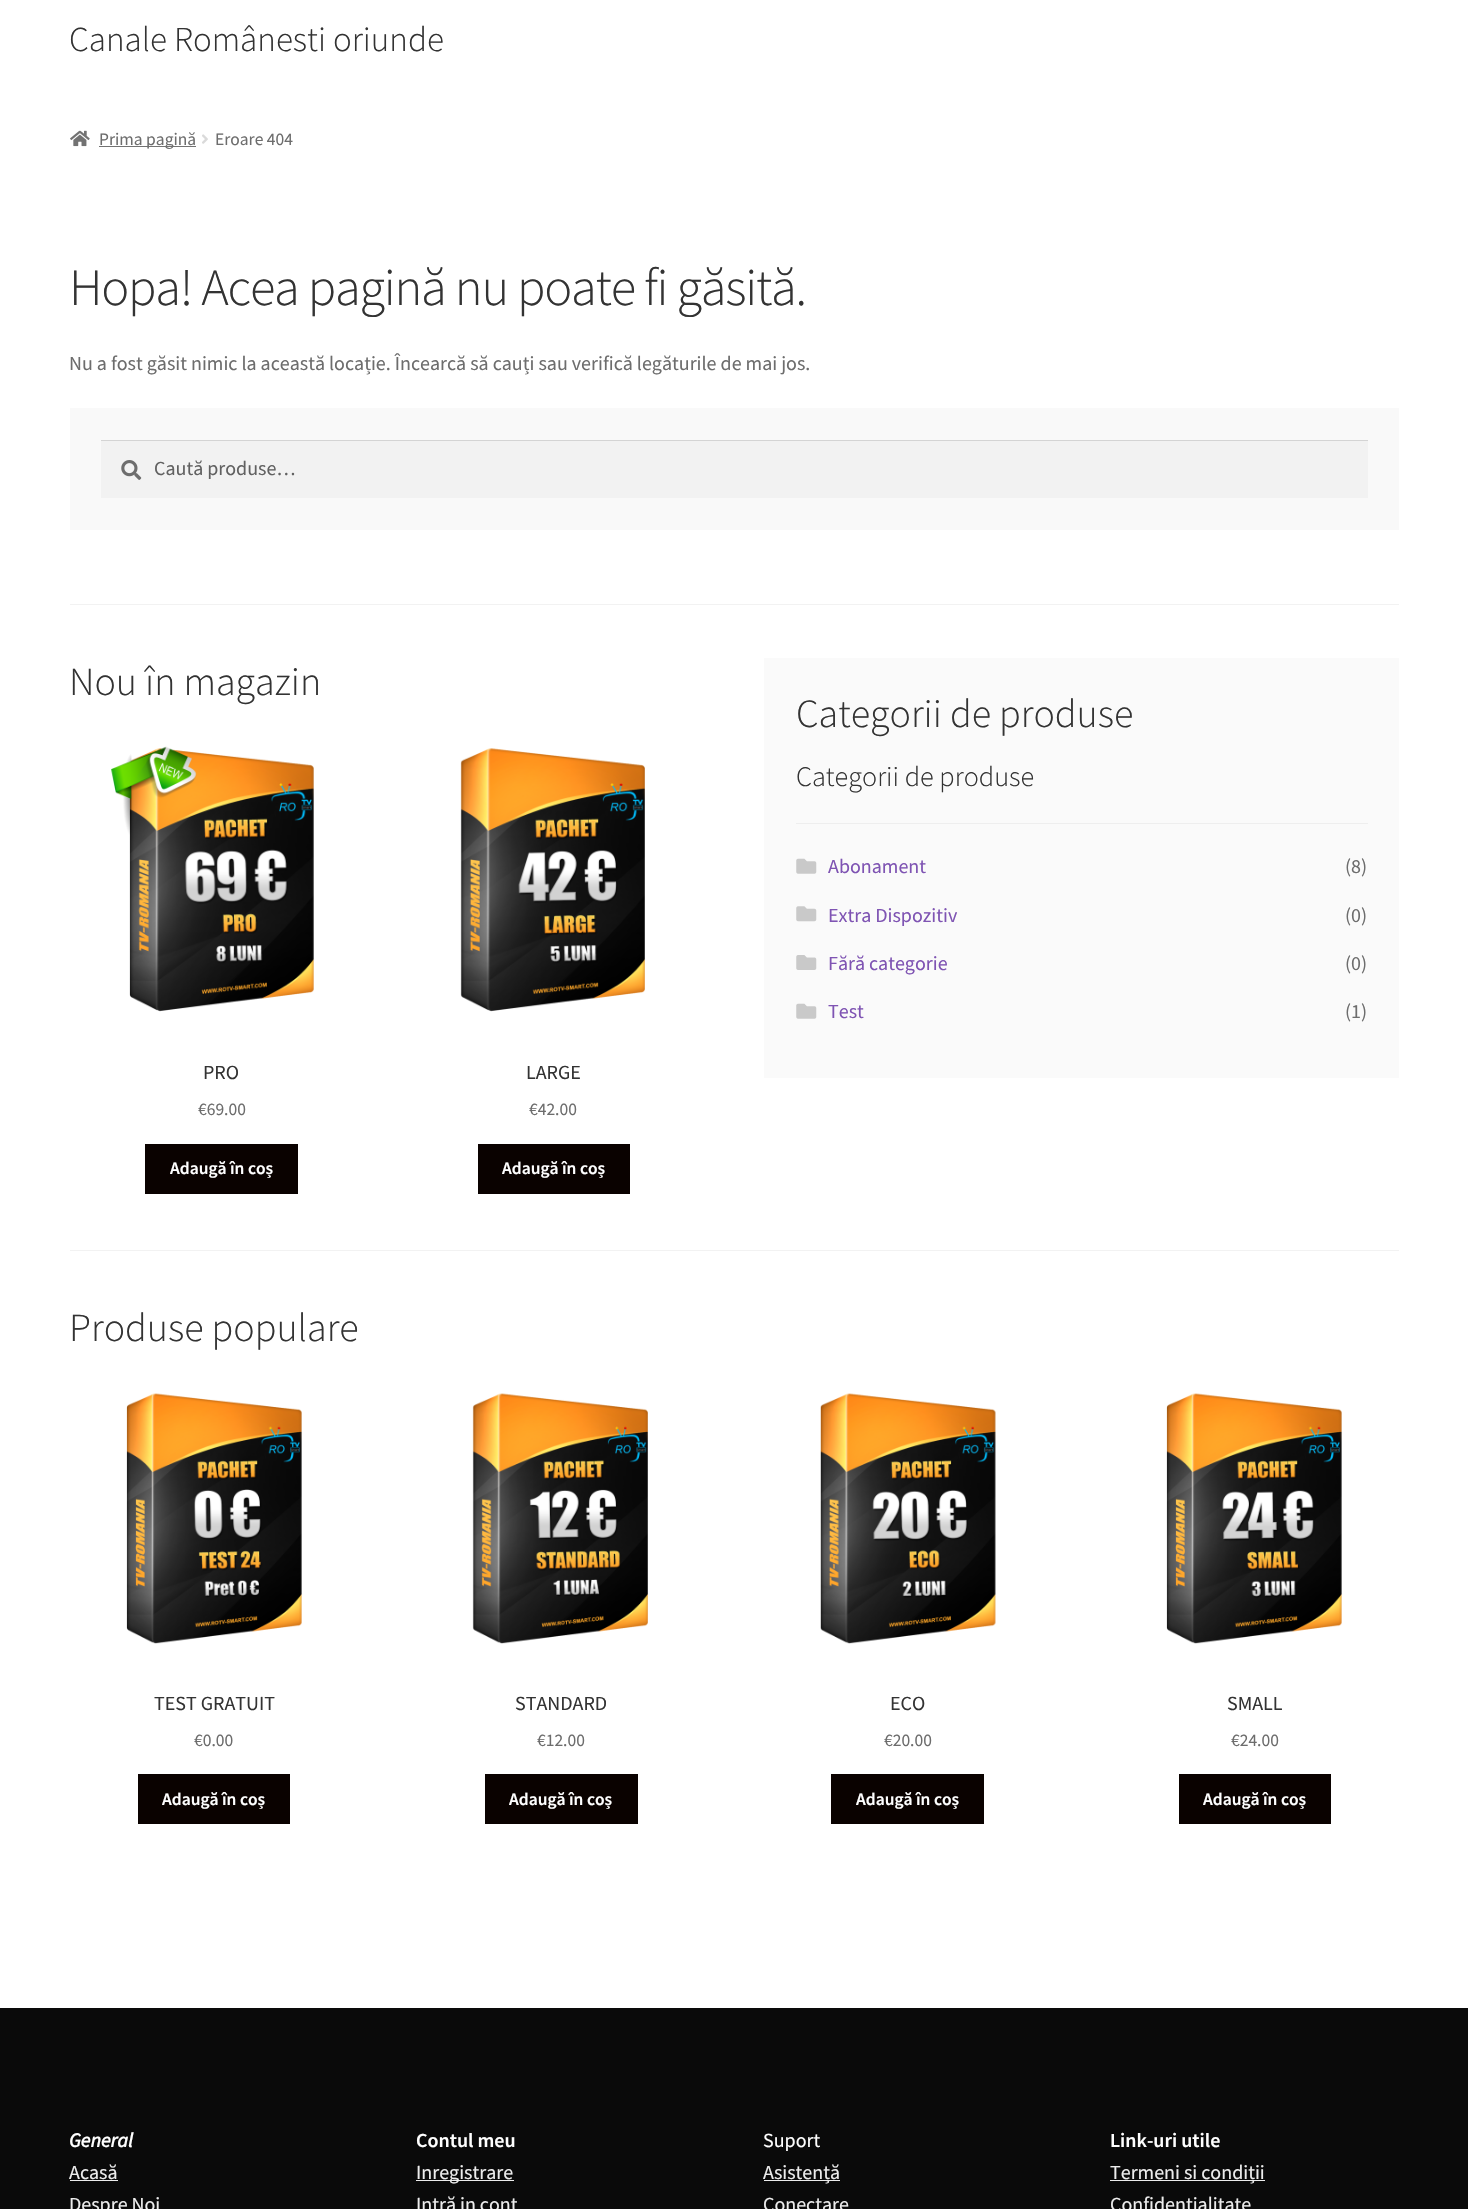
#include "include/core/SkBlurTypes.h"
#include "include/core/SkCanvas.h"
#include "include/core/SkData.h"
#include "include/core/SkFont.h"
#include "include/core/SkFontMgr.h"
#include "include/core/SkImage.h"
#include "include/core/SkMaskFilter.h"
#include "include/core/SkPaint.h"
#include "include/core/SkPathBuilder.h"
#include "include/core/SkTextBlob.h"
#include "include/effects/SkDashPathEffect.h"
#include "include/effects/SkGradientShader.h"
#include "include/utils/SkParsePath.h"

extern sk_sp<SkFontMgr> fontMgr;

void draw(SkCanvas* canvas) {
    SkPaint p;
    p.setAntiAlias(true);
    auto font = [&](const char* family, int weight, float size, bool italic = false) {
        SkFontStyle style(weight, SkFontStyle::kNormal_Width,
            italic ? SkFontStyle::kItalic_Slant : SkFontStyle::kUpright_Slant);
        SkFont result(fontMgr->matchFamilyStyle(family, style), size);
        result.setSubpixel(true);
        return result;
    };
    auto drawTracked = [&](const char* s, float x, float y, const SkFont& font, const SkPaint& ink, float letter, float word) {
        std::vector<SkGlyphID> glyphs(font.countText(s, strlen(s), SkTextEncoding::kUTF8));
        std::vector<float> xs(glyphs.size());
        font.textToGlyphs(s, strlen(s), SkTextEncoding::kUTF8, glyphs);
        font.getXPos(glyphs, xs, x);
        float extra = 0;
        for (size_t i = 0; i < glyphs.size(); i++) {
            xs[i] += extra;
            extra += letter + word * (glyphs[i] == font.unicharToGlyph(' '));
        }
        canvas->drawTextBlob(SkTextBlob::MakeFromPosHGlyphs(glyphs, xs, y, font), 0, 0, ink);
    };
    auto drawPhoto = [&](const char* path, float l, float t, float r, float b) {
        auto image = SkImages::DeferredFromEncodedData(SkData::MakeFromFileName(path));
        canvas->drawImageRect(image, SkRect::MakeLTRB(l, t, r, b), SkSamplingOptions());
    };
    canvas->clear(0xFFFFFFFF);
    auto font1 = font("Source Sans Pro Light", 300, 35);
    p.setColor(0xFF333333);
    canvas->drawString("Canale Românesti oriunde", 69, 51, font1, p);
    drawPhoto("media/1.png", 70, 130, 90, 147);
    p.setColor(0xFF727272);
    canvas->drawRect(SkRect::MakeLTRB(99, 146, 196, 147), p);
    auto font2 = font("Source Sans Pro", 400, 17.5f);
    p.setColor(0xFF6D6D6D);
    canvas->drawString("Prima pagină", 99, 145, font2, p);
    drawPhoto("media/2.png", 202, 134, 208, 144);
    canvas->drawString("Eroare 404", 215, 145, font2, p);
    auto font3 = font("Source Sans Pro Light", 300, 52.4f);
    p.setColor(0xFF333333);
    drawTracked("Hopa! Acea pagină nu poate fi găsită.", 69, 305, font3, p, -1.25f, 0);
    auto font4 = font("Source Sans Pro", 400, 20);
    p.setColor(0xFF6D6D6D);
    canvas->drawString("Nu a fost găsit nimic la această locație. Încearcă să cauți sau verifică legăturile de mai jos.", 69, 370, font4, p);
    p.setColor(0xFFF9F9F9);
    canvas->drawRect(SkRect::MakeLTRB(70, 408, 1399, 530), p);
    p.setColor(0xFFF2F2F2);
    canvas->drawRect(SkRect::MakeLTRB(101, 441, 1368, 498), p);
    drawPhoto("media/3.png", 121, 460, 142, 480);
    p.setColor(0xFFD4D4D4);
    canvas->drawRect(SkRect::MakeLTRB(101, 440, 1368, 441), p);
    p.setColor(0xFF616161);
    canvas->drawString("Caută produse…", 154, 475, font4, p);
    p.setColor(0xFFF2F2F2);
    canvas->drawRect(SkRect::MakeLTRB(70, 604, 1399, 605), p);
    canvas->drawRect(SkRect::MakeLTRB(70, 1250, 1399, 1251), p);
    auto font5 = font("Source Sans Pro Light", 300, 40);
    p.setColor(0xFF333333);
    canvas->drawString("Nou în magazin", 69, 695, font5, p);
    drawPhoto("media/4.png", 111, 746, 314, 1012);
    canvas->drawString("PRO", 203, 1079, font4, p);
    p.setColor(0xFF6D6D6D);
    canvas->drawString("€69.00", 198, 1115, font2, p);
    p.setColor(0xFF0A0200);
    canvas->drawRect(SkRect::MakeLTRB(145, 1144, 298, 1194), p);
    auto font6 = font("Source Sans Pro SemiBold", 600, 17.5f);
    p.setColor(0xFFFFFFFF);
    canvas->drawString("Adaugă în coș", 170, 1174, font6, p);
    drawPhoto("media/5.png", 460, 748, 645, 1012);
    p.setColor(0xFF333333);
    canvas->drawString("LARGE", 526, 1079, font4, p);
    p.setColor(0xFF6D6D6D);
    canvas->drawString("€42.00", 529, 1115, font2, p);
    p.setColor(0xFF0A0200);
    canvas->drawRect(SkRect::MakeLTRB(478, 1144, 630, 1194), p);
    p.setColor(0xFFFFFFFF);
    canvas->drawString("Adaugă în coș", 502, 1174, font6, p);
    p.setColor(0xFFFAFAFA);
    canvas->drawRect(SkRect::MakeLTRB(764, 658, 1399, 1078), p);
    p.setColor(0xFF333333);
    canvas->drawString("Categorii de produse", 796, 727, font5, p);
    p.setColor(0xFFEEEEEE);
    canvas->drawRect(SkRect::MakeLTRB(796, 823, 1368, 824), p);
    auto font7 = font("Source Sans Pro Light", 300, 28.25f);
    p.setColor(0xFF333333);
    canvas->drawString("Categorii de produse", 796, 786, font7, p);
    drawPhoto("media/6.png", 796, 858, 817, 874);
    p.setColor(0xFF7F54B3);
    canvas->drawString("Abonament", 828, 873, font4, p);
    p.setColor(0xFF6D6D6D);
    canvas->drawString("(8)", 1345, 873, font4, p);
    drawPhoto("media/7.png", 796, 906, 817, 922);
    p.setColor(0xFF7F54B3);
    canvas->drawString("Extra Dispozitiv", 828, 922, font4, p);
    p.setColor(0xFF6D6D6D);
    canvas->drawString("(0)", 1345, 922, font4, p);
    drawPhoto("media/8.png", 796, 955, 817, 970);
    p.setColor(0xFF7F54B3);
    canvas->drawString("Fără categorie", 828, 970, font4, p);
    p.setColor(0xFF6D6D6D);
    canvas->drawString("(0)", 1345, 970, font4, p);
    drawPhoto("media/6.png", 796, 1003, 817, 1019);
    p.setColor(0xFF7F54B3);
    canvas->drawString("Test", 828, 1018, font4, p);
    p.setColor(0xFF6D6D6D);
    canvas->drawString("(1)", 1345, 1018, font4, p);
    p.setColor(0xFF333333);
    canvas->drawString("Produse populare", 69, 1341, font5, p);
    drawPhoto("media/9.png", 126, 1393, 302, 1644);
    canvas->drawString("TEST GRATUIT", 154, 1710, font4, p);
    p.setColor(0xFF6D6D6D);
    canvas->drawString("€0.00", 194, 1746, font2, p);
    p.setColor(0xFF0A0200);
    canvas->drawRect(SkRect::MakeLTRB(138, 1774, 290, 1824), p);
    p.setColor(0xFFFFFFFF);
    canvas->drawString("Adaugă în coș", 162, 1805, font6, p);
    drawPhoto("media/10.png", 472, 1393, 648, 1644);
    p.setColor(0xFF333333);
    canvas->drawString("STANDARD", 515, 1710, font4, p);
    p.setColor(0xFF6D6D6D);
    canvas->drawString("€12.00", 537, 1746, font2, p);
    p.setColor(0xFF0A0200);
    canvas->drawRect(SkRect::MakeLTRB(485, 1774, 638, 1824), p);
    p.setColor(0xFFFFFFFF);
    canvas->drawString("Adaugă în coș", 509, 1805, font6, p);
    drawPhoto("media/11.png", 820, 1393, 996, 1644);
    p.setColor(0xFF333333);
    canvas->drawString("ECO", 890, 1710, font4, p);
    p.setColor(0xFF6D6D6D);
    canvas->drawString("€20.00", 884, 1746, font2, p);
    p.setColor(0xFF0A0200);
    canvas->drawRect(SkRect::MakeLTRB(831, 1774, 984, 1824), p);
    p.setColor(0xFFFFFFFF);
    canvas->drawString("Adaugă în coș", 856, 1805, font6, p);
    drawPhoto("media/12.png", 1166, 1393, 1342, 1644);
    p.setColor(0xFF333333);
    canvas->drawString("SMALL", 1227, 1710, font4, p);
    p.setColor(0xFF6D6D6D);
    canvas->drawString("€24.00", 1231, 1746, font2, p);
    p.setColor(0xFF0A0200);
    canvas->drawRect(SkRect::MakeLTRB(1179, 1774, 1331, 1824), p);
    p.setColor(0xFFFFFFFF);
    canvas->drawString("Adaugă în coș", 1203, 1805, font6, p);
    p.setColor(0xFF0A0A0A);
    canvas->drawRect(SkRect::MakeLTRB(0, 2008, 1468, 2209), p);
    auto font8 = font("Source Sans Pro", 700, 20, true);
    p.setColor(0xFFFFFFFF);
    canvas->drawString("General", 69, 2147, font8, p);
    p.setColor(0xFFEDEDED);
    canvas->drawString("Acasă", 69, 2179, font4, p);
    canvas->drawRect(SkRect::MakeLTRB(70, 2180, 118, 2181), p);
    canvas->drawString("Despre Noi", 69, 2211, font4, p);
    auto font9 = font("Source Sans Pro SemiBold", 600, 20);
    p.setColor(0xFFFFFFFF);
    canvas->drawString("Contul meu", 416, 2147, font9, p);
    p.setColor(0xFFEDEDED);
    canvas->drawRect(SkRect::MakeLTRB(416, 2180, 514, 2181), p);
    canvas->drawString("Inregistrare", 416, 2179, font4, p);
    canvas->drawString("Intră in cont", 416, 2211, font4, p);
    p.setColor(0xFFFFFFFF);
    canvas->drawString("Suport", 763, 2147, font4, p);
    p.setColor(0xFFEDEDED);
    canvas->drawRect(SkRect::MakeLTRB(764, 2180, 840, 2181), p);
    canvas->drawString("Asistență", 763, 2179, font4, p);
    canvas->drawString("Conectare", 763, 2211, font4, p);
    p.setColor(0xFFFFFFFF);
    canvas->drawString("Link-uri utile", 1110, 2147, font9, p);
    p.setColor(0xFFEDEDED);
    canvas->drawRect(SkRect::MakeLTRB(1110, 2180, 1265, 2181), p);
    canvas->drawString("Termeni si condiții", 1110, 2179, font4, p);
    canvas->drawString("Confidentialitate", 1110, 2211, font4, p);
}
